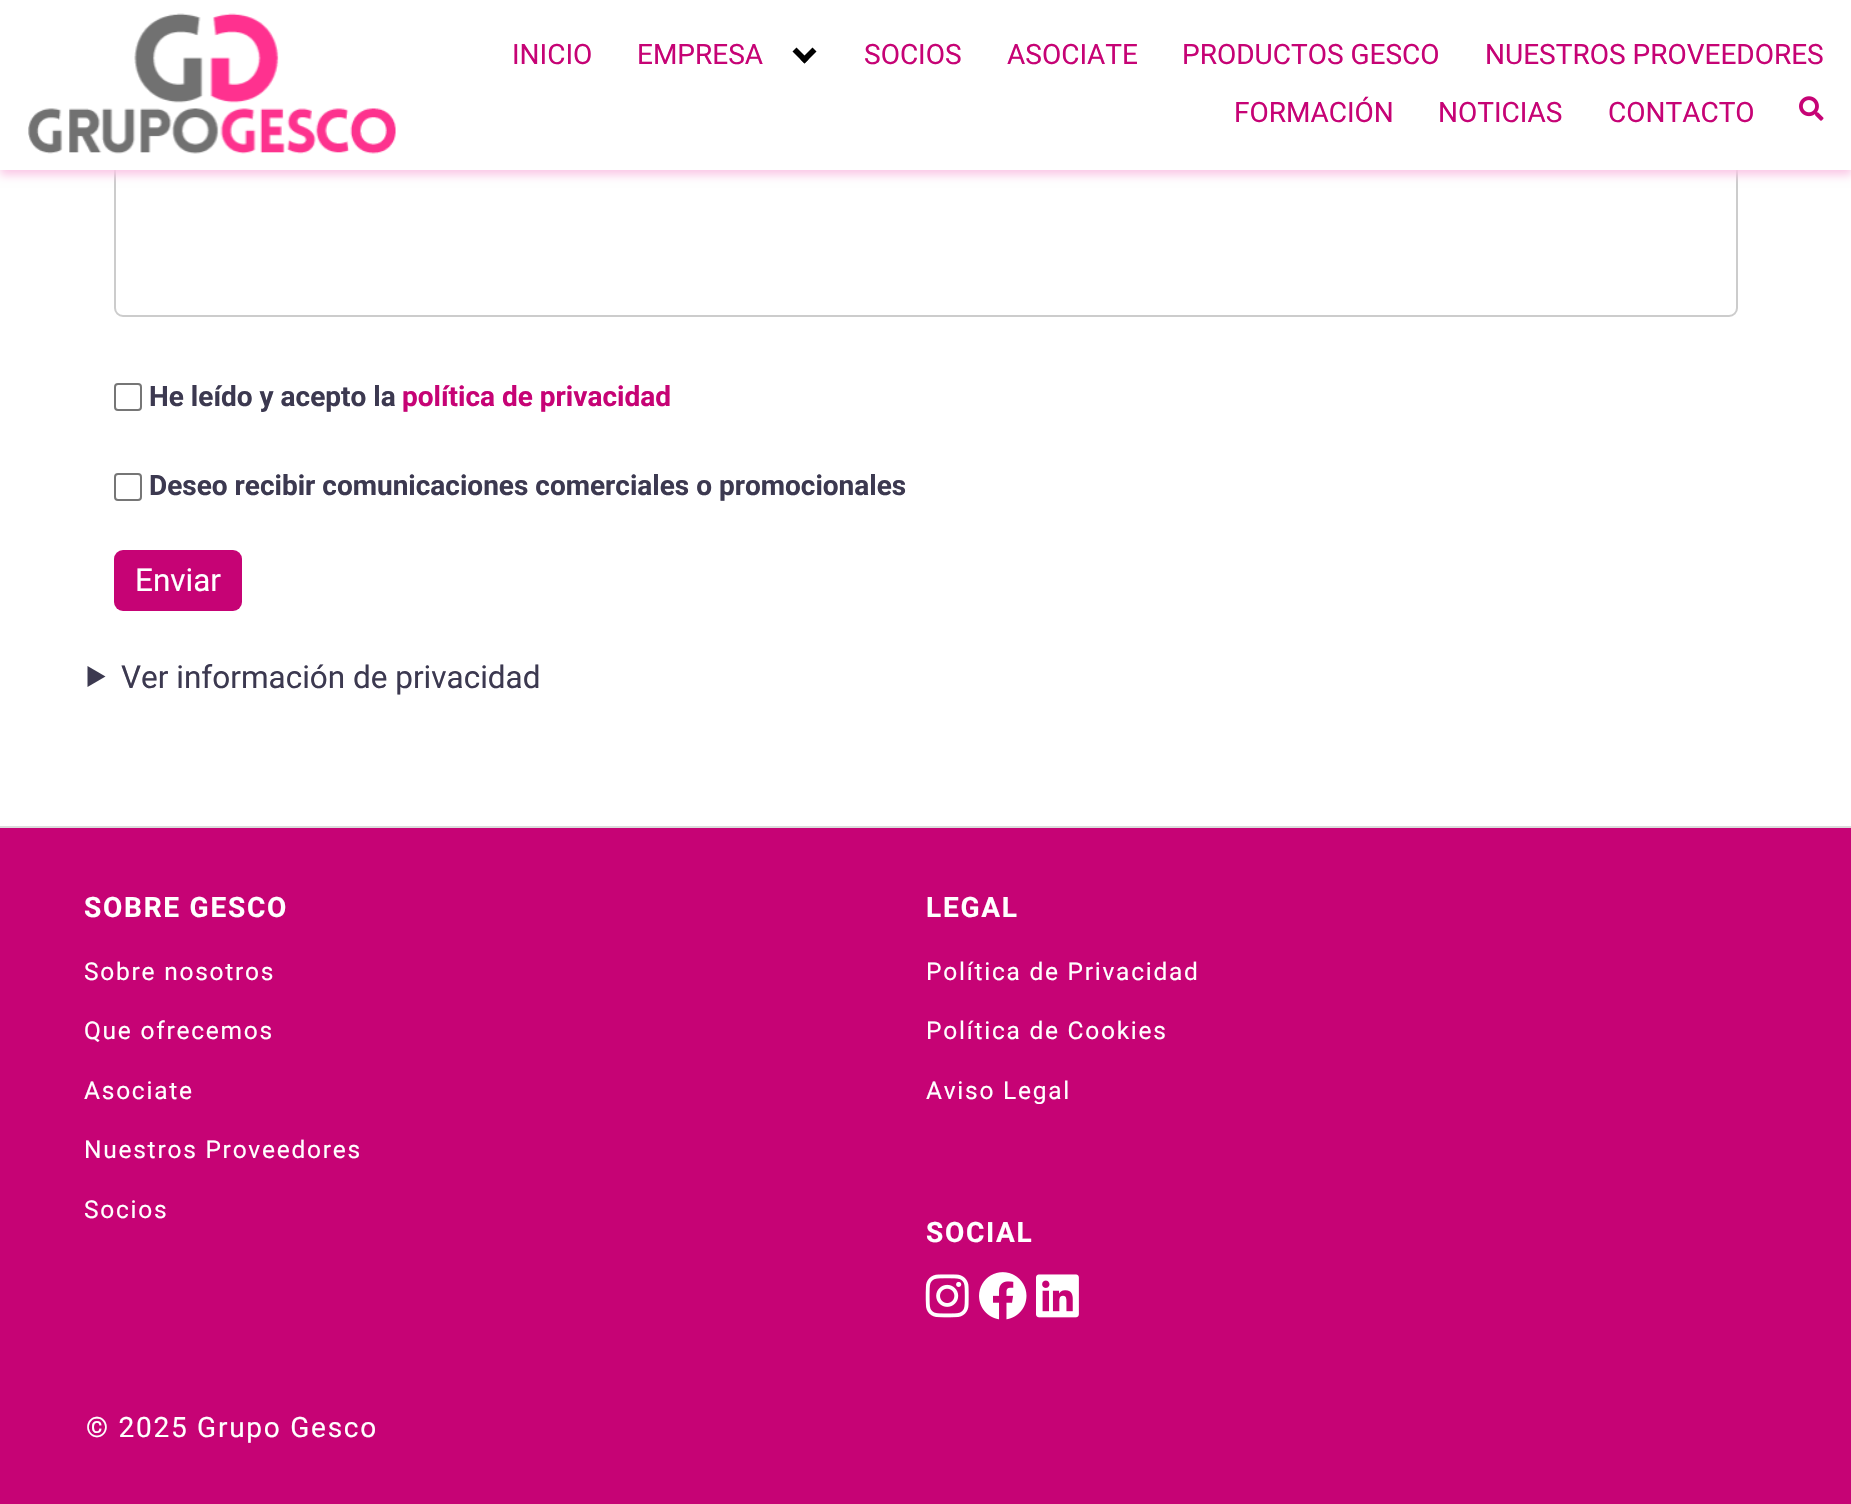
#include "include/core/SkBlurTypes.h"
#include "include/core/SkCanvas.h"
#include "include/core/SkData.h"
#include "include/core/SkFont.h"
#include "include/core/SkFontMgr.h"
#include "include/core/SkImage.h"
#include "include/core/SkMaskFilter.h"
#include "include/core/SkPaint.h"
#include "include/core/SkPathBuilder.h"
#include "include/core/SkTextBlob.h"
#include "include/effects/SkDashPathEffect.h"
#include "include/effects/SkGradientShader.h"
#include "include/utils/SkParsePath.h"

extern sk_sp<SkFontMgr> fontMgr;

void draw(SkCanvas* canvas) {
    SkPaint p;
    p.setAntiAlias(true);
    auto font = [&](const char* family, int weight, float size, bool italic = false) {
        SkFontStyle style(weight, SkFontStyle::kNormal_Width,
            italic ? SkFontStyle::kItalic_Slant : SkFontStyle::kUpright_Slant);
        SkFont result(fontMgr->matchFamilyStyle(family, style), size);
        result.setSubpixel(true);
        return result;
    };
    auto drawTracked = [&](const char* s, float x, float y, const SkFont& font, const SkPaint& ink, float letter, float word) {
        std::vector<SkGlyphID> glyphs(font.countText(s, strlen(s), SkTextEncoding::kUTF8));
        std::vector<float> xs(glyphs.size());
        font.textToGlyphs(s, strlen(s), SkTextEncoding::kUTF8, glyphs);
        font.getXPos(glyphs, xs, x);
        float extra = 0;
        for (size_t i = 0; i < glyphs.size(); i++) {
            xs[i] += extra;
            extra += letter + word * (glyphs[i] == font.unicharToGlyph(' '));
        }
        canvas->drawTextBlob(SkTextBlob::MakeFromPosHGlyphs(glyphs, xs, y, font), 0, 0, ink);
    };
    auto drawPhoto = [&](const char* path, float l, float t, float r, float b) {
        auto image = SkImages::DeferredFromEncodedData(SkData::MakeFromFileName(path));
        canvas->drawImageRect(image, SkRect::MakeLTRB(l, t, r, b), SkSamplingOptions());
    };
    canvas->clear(0xFFFFFFFF);
    p.setStyle(SkPaint::kStroke_Style);
    p.setStrokeWidth(2);
    p.setColor(0xFFCCCCCC);
    canvas->drawRoundRect(SkRect::MakeLTRB(115, 90, 1737, 316), 8, 8, p);
    p.setStyle(SkPaint::kFill_Style);
    p.setColor(0xFFFBC7E6);
    p.setMaskFilter(SkMaskFilter::MakeBlur(kNormal_SkBlurStyle, 4.5f));
    canvas->drawRect(SkRect::MakeLTRB(0, 5, 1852, 175), p);
    p.setMaskFilter(nullptr);
    p.setColor(0xFFFFFFFF);
    canvas->drawRect(SkRect::MakeLTRB(0, 0, 1851, 170), p);
    drawPhoto("media/1.png", 28, 13, 396, 154);
    auto font1 = font("Roboto", 400, 28);
    p.setColor(0xFFC60375);
    canvas->drawString("INICIO", 512, 64, font1, p);
    canvas->drawString("EMPRESA", 637, 64, font1, p);
    p.setColor(0xFF000000);
    canvas->drawPath(SkPathBuilder().moveTo(792.5f, 51.5f).lineTo(796.5f, 47.5f).lineTo(808.5f, 59.5f).lineTo(804.5f, 63.5f).close().detach(), p);
    canvas->drawPath(SkPathBuilder().moveTo(800.5f, 59.5f).lineTo(812.5f, 47.5f).lineTo(816.5f, 51.5f).lineTo(804.5f, 63.5f).close().detach(), p);
    p.setColor(0xFFC60375);
    {
        const struct { const char* s; float x, y; } items[] = {
            {"SOCIOS", 864, 64},
            {"ASOCIATE", 1007, 64},
            {"PRODUCTOS GESCO", 1182, 64},
            {"NUESTROS PROVEEDORES", 1485, 64},
            {"FORMACIÓN", 1234, 122},
            {"NOTICIAS", 1438, 122},
            {"CONTACTO", 1608, 122},
        };
        for (auto [s, x, y] : items) {
            canvas->drawString(s, x, y, font1, p);
        }
    }
    drawPhoto("media/2.png", 1799, 96, 1824, 121);
    p.setStyle(SkPaint::kStroke_Style);
    p.setColor(0xFF767676);
    canvas->drawRoundRect(SkRect::MakeLTRB(115, 384, 141, 410), 3, 3, p);
    auto font2 = font("Roboto", 700, 28);
    p.setStyle(SkPaint::kFill_Style);
    p.setColor(0xFF3C3950);
    canvas->drawString("He leído y acepto la", 149, 406, font2, p);
    p.setColor(0xFFC60375);
    canvas->drawString("política de privacidad", 402, 406, font2, p);
    p.setStyle(SkPaint::kStroke_Style);
    p.setColor(0xFF767676);
    canvas->drawRoundRect(SkRect::MakeLTRB(115, 474, 141, 500), 3, 3, p);
    p.setStyle(SkPaint::kFill_Style);
    p.setColor(0xFF3C3950);
    canvas->drawString("Deseo recibir comunicaciones comerciales o promocionales", 149, 495, font2, p);
    p.setColor(0xFFC60375);
    canvas->drawRoundRect(SkRect::MakeLTRB(114, 550, 242, 611), 9, 9, p);
    auto font3 = font("Roboto", 400, 31.5f);
    p.setColor(0xFFFFFFFF);
    canvas->drawString("Enviar", 135, 591, font3, p);
    p.setColor(0xFF3C3950);
    canvas->drawPath(SkPathBuilder().moveTo(87.5f, 666).lineTo(105.5f, 676.5f).lineTo(87.5f, 687).close().detach(), p);
    canvas->drawString("Ver información de privacidad", 121, 688, font3, p);
    p.setColor(0xFFC60375);
    canvas->drawRect(SkRect::MakeLTRB(0, 828, 1851, 1504), p);
    p.setColor(0xFFDBDBDB);
    canvas->drawRect(SkRect::MakeLTRB(0, 826, 1851, 828), p);
    p.setColor(0xFFFFFFFF);
    drawTracked("SOBRE GESCO", 84, 917, font2, p, 1.75f, 0);
    auto font4 = font("Roboto", 400, 24.5f);
    {
        const struct { const char* s; float x, y; } items[] = {
            {"Sobre nosotros", 84, 980},
            {"Que ofrecemos", 84, 1039},
            {"Asociate", 84, 1099},
            {"Nuestros Proveedores", 84, 1158},
            {"Socios", 84, 1218},
        };
        for (auto [s, x, y] : items) {
            drawTracked(s, x, y, font4, p, 1.75f, 0);
        }
    }
    drawTracked("LEGAL", 926, 917, font2, p, 1.75f, 0);
    {
        const struct { const char* s; float x, y; } items[] = {
            {"Política de Privacidad", 926, 980},
            {"Política de Cookies", 926, 1039},
            {"Aviso Legal", 926, 1099},
        };
        for (auto [s, x, y] : items) {
            drawTracked(s, x, y, font4, p, 1.75f, 0);
        }
    }
    drawTracked("SOCIAL", 926, 1242, font2, p, 1.75f, 0);
    drawPhoto("media/3.png", 925, 1274, 969, 1318);
    drawPhoto("media/4.png", 979, 1272, 1027, 1320);
    drawPhoto("media/5.png", 1036, 1274, 1079, 1318);
    drawTracked("© 2025 Grupo Gesco", 86, 1437, font1, p, 1.75f, 0);
}
